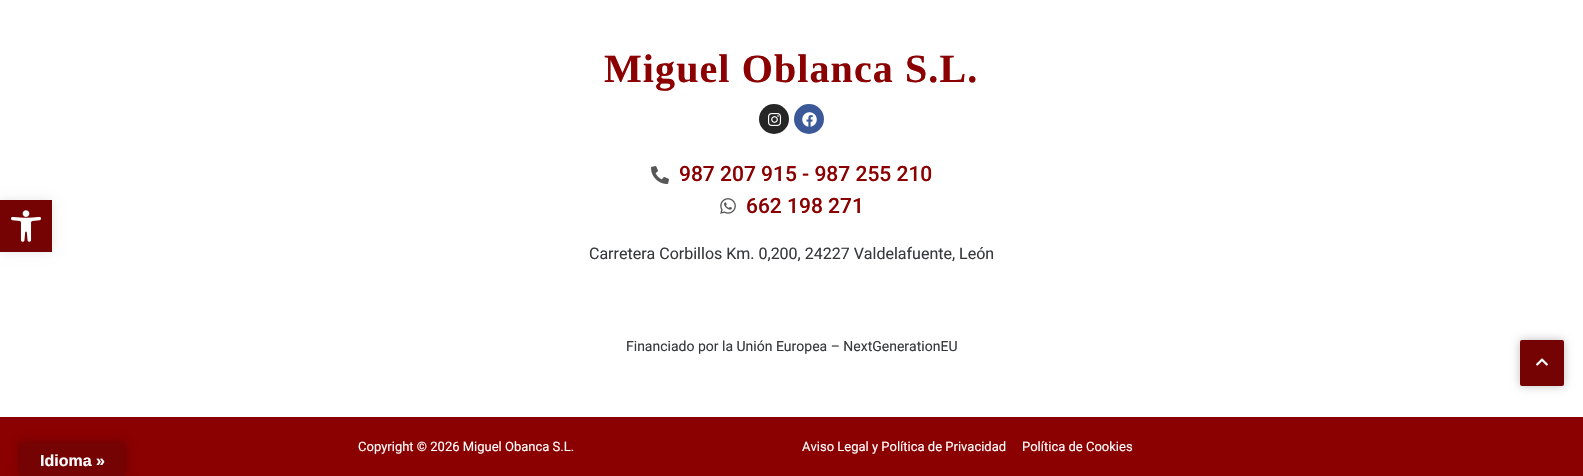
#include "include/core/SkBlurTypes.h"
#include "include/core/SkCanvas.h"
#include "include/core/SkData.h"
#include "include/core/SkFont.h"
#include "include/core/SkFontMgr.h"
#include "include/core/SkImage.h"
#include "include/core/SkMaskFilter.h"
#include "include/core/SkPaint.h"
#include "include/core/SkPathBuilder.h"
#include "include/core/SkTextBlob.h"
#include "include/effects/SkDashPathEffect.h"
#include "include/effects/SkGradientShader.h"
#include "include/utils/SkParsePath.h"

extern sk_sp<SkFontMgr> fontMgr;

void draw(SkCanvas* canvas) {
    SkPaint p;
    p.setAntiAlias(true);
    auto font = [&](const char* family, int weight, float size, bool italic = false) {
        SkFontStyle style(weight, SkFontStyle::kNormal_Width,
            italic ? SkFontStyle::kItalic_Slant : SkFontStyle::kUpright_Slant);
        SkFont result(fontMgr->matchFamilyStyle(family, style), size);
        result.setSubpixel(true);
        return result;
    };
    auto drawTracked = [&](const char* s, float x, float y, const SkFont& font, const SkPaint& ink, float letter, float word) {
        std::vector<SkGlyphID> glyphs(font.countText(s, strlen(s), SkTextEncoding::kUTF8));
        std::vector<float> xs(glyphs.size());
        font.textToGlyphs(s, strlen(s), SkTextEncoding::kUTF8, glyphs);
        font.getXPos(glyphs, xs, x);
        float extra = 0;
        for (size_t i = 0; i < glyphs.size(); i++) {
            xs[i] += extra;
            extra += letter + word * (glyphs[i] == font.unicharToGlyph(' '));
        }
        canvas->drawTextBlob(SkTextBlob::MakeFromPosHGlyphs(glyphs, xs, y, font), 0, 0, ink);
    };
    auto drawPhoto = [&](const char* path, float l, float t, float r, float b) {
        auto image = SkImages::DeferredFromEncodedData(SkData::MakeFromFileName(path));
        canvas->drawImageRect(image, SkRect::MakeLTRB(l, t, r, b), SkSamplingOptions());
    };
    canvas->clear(0xFFFFFFFF);
    p.setColor(0x1A000000);
    p.setMaskFilter(SkMaskFilter::MakeBlur(kNormal_SkBlurStyle, 5));
    canvas->drawRect(SkRect::MakeLTRB(0, 200, 52, 252), p);
    p.setMaskFilter(nullptr);
    p.setColor(0xFF750303);
    canvas->drawRect(SkRect::MakeLTRB(0, 200, 52, 252), p);
    drawPhoto("media/1.png", 11, 210, 41, 242);
    auto font1 = font("Liberation Serif", 700, 40);
    p.setColor(0xFF8B0000);
    drawTracked("Miguel Oblanca S.L.", 604, 82, font1, p, 1.1f, 0);
    p.setColor(0xFF262626);
    canvas->drawCircle(774, 119, 15, p);
    drawPhoto("media/2.png", 768, 113, 782, 126);
    p.setColor(0xFF3B5998);
    canvas->drawCircle(809, 119, 15, p);
    drawPhoto("media/3.png", 802, 112, 817, 127);
    drawPhoto("media/4.png", 651, 166, 669, 184);
    auto font2 = font("Roboto", 500, 21);
    p.setColor(0xFF8B0000);
    canvas->drawString("987 207 915 - 987 255 210", 679, 181, font2, p);
    drawPhoto("media/5.png", 720, 198, 736, 214);
    canvas->drawString("662 198 271", 746, 213, font2, p);
    auto font3 = font("Roboto", 400, 16);
    p.setColor(0xFF37393C);
    canvas->drawString("Carretera Corbillos Km. 0,200, 24227 Valdelafuente, León", 589, 259, font3, p);
    auto font4 = font("Roboto", 400, 14);
    canvas->drawString("Financiado por la Unión Europea – NextGenerationEU", 626, 351, font4, p);
    p.setColor(0x40000000);
    p.setMaskFilter(SkMaskFilter::MakeBlur(kNormal_SkBlurStyle, 5));
    canvas->drawRoundRect(SkRect::MakeLTRB(1520, 340, 1564, 386), 2, 2, p);
    p.setMaskFilter(nullptr);
    p.setColor(0xFF750303);
    canvas->drawRoundRect(SkRect::MakeLTRB(1520, 340, 1564, 386), 2, 2, p);
    drawPhoto("media/6.png", 1536, 358, 1548, 366);
    p.setColor(0xFF8B0000);
    canvas->drawRect(SkRect::MakeLTRB(0, 417, 1583, 476), p);
    auto font5 = font("Roboto", 400, 13);
    p.setColor(0xFFFFFFFF);
    {
        const struct { const char* s; float x, y; } items[] = {
            {"Copyright © 2026 Miguel Obanca S.L.", 358, 451},
            {"Aviso Legal y Política de Privacidad", 802, 451},
            {"Política de Cookies", 1022, 451},
        };
        for (auto [s, x, y] : items) {
            canvas->drawString(s, x, y, font5, p);
        }
    }
    p.setColor(0x4D000000);
    p.setMaskFilter(SkMaskFilter::MakeBlur(kNormal_SkBlurStyle, 4.5f));
    canvas->drawRect(SkRect::MakeLTRB(20, 443, 125, 476), p);
    p.setMaskFilter(nullptr);
    p.setColor(0xFF750303);
    canvas->drawRect(SkRect::MakeLTRB(20, 443, 125, 476), p);
    auto font6 = font("Liberation Sans", 700, 16);
    p.setColor(0xFFFFFFFF);
    canvas->drawString("Idioma »", 40, 466, font6, p);
}
